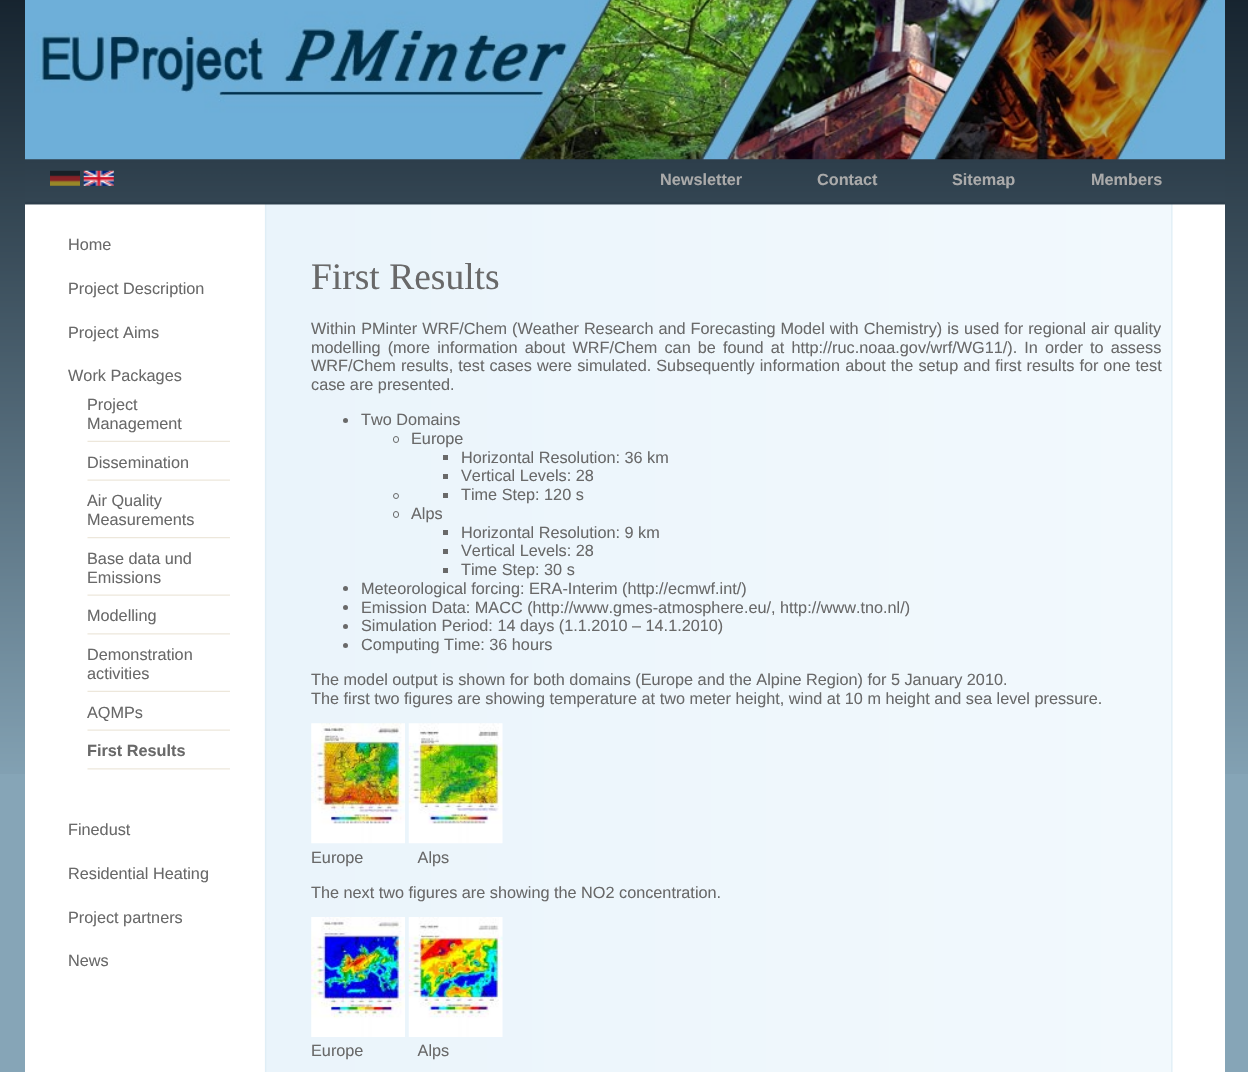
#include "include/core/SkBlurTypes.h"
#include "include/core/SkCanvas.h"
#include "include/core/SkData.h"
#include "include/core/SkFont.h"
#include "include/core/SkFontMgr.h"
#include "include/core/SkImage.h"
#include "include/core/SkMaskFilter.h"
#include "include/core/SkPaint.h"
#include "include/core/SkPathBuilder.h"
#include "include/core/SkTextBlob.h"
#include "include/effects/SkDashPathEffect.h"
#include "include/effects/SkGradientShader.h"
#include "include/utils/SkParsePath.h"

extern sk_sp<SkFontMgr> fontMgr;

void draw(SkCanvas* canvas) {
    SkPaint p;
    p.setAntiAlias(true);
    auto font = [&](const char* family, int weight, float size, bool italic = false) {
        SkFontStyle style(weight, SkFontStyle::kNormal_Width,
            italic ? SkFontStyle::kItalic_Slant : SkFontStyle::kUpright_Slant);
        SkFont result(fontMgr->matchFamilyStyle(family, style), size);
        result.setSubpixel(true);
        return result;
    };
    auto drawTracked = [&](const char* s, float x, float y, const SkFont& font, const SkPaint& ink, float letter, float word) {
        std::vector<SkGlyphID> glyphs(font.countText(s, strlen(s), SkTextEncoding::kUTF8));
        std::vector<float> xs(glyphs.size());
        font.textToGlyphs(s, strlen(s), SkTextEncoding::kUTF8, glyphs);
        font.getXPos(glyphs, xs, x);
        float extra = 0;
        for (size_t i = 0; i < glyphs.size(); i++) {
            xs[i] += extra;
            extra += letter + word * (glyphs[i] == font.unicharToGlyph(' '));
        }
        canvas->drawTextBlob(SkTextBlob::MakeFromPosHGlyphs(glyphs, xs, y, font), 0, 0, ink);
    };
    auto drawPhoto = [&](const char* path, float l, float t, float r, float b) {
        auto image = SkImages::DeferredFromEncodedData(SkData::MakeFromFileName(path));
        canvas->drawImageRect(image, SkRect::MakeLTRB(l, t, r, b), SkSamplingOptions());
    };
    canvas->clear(0xFF86A5B7);
    drawPhoto("media/1.png", 0, 0, 1248, 774);
    drawPhoto("media/2.png", 25, 0, 1225, 160);
    drawPhoto("media/3.png", 25, 159, 1225, 204);
    drawPhoto("media/4.png", 50, 170, 80, 186);
    drawPhoto("media/5.png", 83, 170, 114, 186);
    auto font1 = font("Liberation Sans", 700, 16.25f);
    p.setColor(0xFFAAAAAA);
    {
        const struct { const char* s; float x, y; } items[] = {
            {"Newsletter", 660, 185},
            {"Contact", 817, 185},
            {"Sitemap", 952, 185},
            {"Members", 1091, 185},
        };
        for (auto [s, x, y] : items) {
            canvas->drawString(s, x, y, font1, p);
        }
    }
    drawPhoto("media/6.png", 25, 204, 1225, 1072);
    auto font2 = font("Liberation Sans", 400, 16.25f);
    p.setColor(0xFF696969);
    {
        const struct { const char* s; float x, y; } items[] = {
            {"Home", 68, 250},
            {"Project Description", 68, 294},
            {"Project Aims", 68, 338},
            {"Work Packages", 68, 381},
        };
        for (auto [s, x, y] : items) {
            canvas->drawString(s, x, y, font2, p);
        }
    }
    drawPhoto("media/7.png", 87, 440, 230, 442);
    canvas->drawString("Project", 87, 410, font2, p);
    canvas->drawString("Management", 87, 429, font2, p);
    drawPhoto("media/8.png", 87, 479, 230, 481);
    canvas->drawString("Dissemination", 87, 468, font2, p);
    drawPhoto("media/9.png", 87, 537, 230, 539);
    canvas->drawString("Air Quality", 87, 506, font2, p);
    canvas->drawString("Measurements", 87, 525, font2, p);
    drawPhoto("media/8.png", 87, 594, 230, 596);
    canvas->drawString("Base data und", 87, 564, font2, p);
    canvas->drawString("Emissions", 87, 583, font2, p);
    drawPhoto("media/10.png", 87, 633, 230, 635);
    canvas->drawString("Modelling", 87, 621, font2, p);
    drawPhoto("media/7.png", 87, 690, 230, 692);
    canvas->drawString("Demonstration", 87, 660, font2, p);
    canvas->drawString("activities", 87, 679, font2, p);
    drawPhoto("media/8.png", 87, 729, 230, 731);
    canvas->drawString("AQMPs", 87, 718, font2, p);
    drawPhoto("media/10.png", 87, 768, 230, 770);
    canvas->drawString("First Results", 87, 756, font1, p);
    {
        const struct { const char* s; float x, y; } items[] = {
            {"Finedust", 68, 835},
            {"Residential Heating", 68, 879},
            {"Project partners", 68, 923},
            {"News", 68, 966},
        };
        for (auto [s, x, y] : items) {
            canvas->drawString(s, x, y, font2, p);
        }
    }
    auto font3 = font("Liberation Serif", 400, 37.5f);
    canvas->drawString("First Results", 311, 289, font3, p);
    drawTracked("Within PMinter WRF/Chem (Weather Research and Forecasting Model with Chemistry) is used for regional air quality", 311, 334, font2, p, 0, 0.5f);
    drawTracked("modelling (more information about WRF/Chem can be found at http://ruc.noaa.gov/wrf/WG11/). In order to assess", 311, 353, font2, p, 0, 2.6f);
    drawTracked("WRF/Chem results, test cases were simulated. Subsequently information about the setup and first results for one test", 311, 371, font2, p, 0, 0.5f);
    canvas->drawString("case are presented.", 311, 390, font2, p);
    canvas->drawCircle(345.5f, 420.5f, 2.5f, p);
    canvas->drawString("Two Domains", 361, 425, font2, p);
    p.setStyle(SkPaint::kStroke_Style);
    p.setStrokeWidth(1);
    canvas->drawRoundRect(SkRect::MakeLTRB(393.5f, 436.5f, 398.5f, 442.5f), 2.5f, 2.5f, p);
    p.setStyle(SkPaint::kFill_Style);
    canvas->drawString("Europe", 411, 444, font2, p);
    canvas->drawRect(SkRect::MakeLTRB(443, 455, 448, 460), p);
    canvas->drawString("Horizontal Resolution: 36 km", 461, 463, font2, p);
    canvas->drawRect(SkRect::MakeLTRB(443, 474, 448, 479), p);
    canvas->drawString("Vertical Levels: 28", 461, 481, font2, p);
    p.setStyle(SkPaint::kStroke_Style);
    canvas->drawCircle(396, 496, 2.5f, p);
    p.setStyle(SkPaint::kFill_Style);
    canvas->drawRect(SkRect::MakeLTRB(443, 493, 448, 498), p);
    canvas->drawString("Time Step: 120 s", 461, 500, font2, p);
    p.setStyle(SkPaint::kStroke_Style);
    canvas->drawRoundRect(SkRect::MakeLTRB(393.5f, 511.5f, 398.5f, 517.5f), 2.5f, 2.5f, p);
    p.setStyle(SkPaint::kFill_Style);
    canvas->drawString("Alps", 411, 519, font2, p);
    canvas->drawRect(SkRect::MakeLTRB(443, 530, 448, 535), p);
    canvas->drawString("Horizontal Resolution: 9 km", 461, 538, font2, p);
    canvas->drawRect(SkRect::MakeLTRB(443, 549, 448, 554), p);
    canvas->drawString("Vertical Levels: 28", 461, 556, font2, p);
    canvas->drawRect(SkRect::MakeLTRB(443, 568, 448, 573), p);
    canvas->drawString("Time Step: 30 s", 461, 575, font2, p);
    canvas->drawCircle(345.5f, 588.5f, 2.5f, p);
    canvas->drawString("Meteorological forcing: ERA-Interim (http://ecmwf.int/)", 361, 594, font2, p);
    canvas->drawCircle(345.5f, 607.5f, 2.5f, p);
    canvas->drawString("Emission Data: MACC (http://www.gmes-atmosphere.eu/, http://www.tno.nl/)", 361, 613, font2, p);
    canvas->drawCircle(345.5f, 626.5f, 2.5f, p);
    canvas->drawString("Simulation Period: 14 days (1.1.2010 – 14.1.2010)", 361, 631, font2, p);
    canvas->drawCircle(345.5f, 645.5f, 2.5f, p);
    {
        const struct { const char* s; float x, y; } items[] = {
            {"Computing Time: 36 hours", 361, 650},
            {"The model output is shown for both domains (Europe and the Alpine Region) for 5 January 2010.", 311, 685},
            {"The first two figures are showing temperature at two meter height, wind at 10 m height and sea level pressure.", 311, 704},
        };
        for (auto [s, x, y] : items) {
            canvas->drawString(s, x, y, font2, p);
        }
    }
    drawPhoto("media/11.png", 311, 723, 405, 844);
    drawPhoto("media/12.png", 408, 723, 503, 844);
    canvas->drawString("Europe            Alps", 311, 863, font2, p);
    canvas->drawString("The next two figures are showing the NO2 concentration.", 311, 898, font2, p);
    drawPhoto("media/13.png", 311, 917, 405, 1037);
    drawPhoto("media/14.png", 408, 917, 503, 1037);
    canvas->drawString("Europe            Alps", 311, 1056, font2, p);
}
